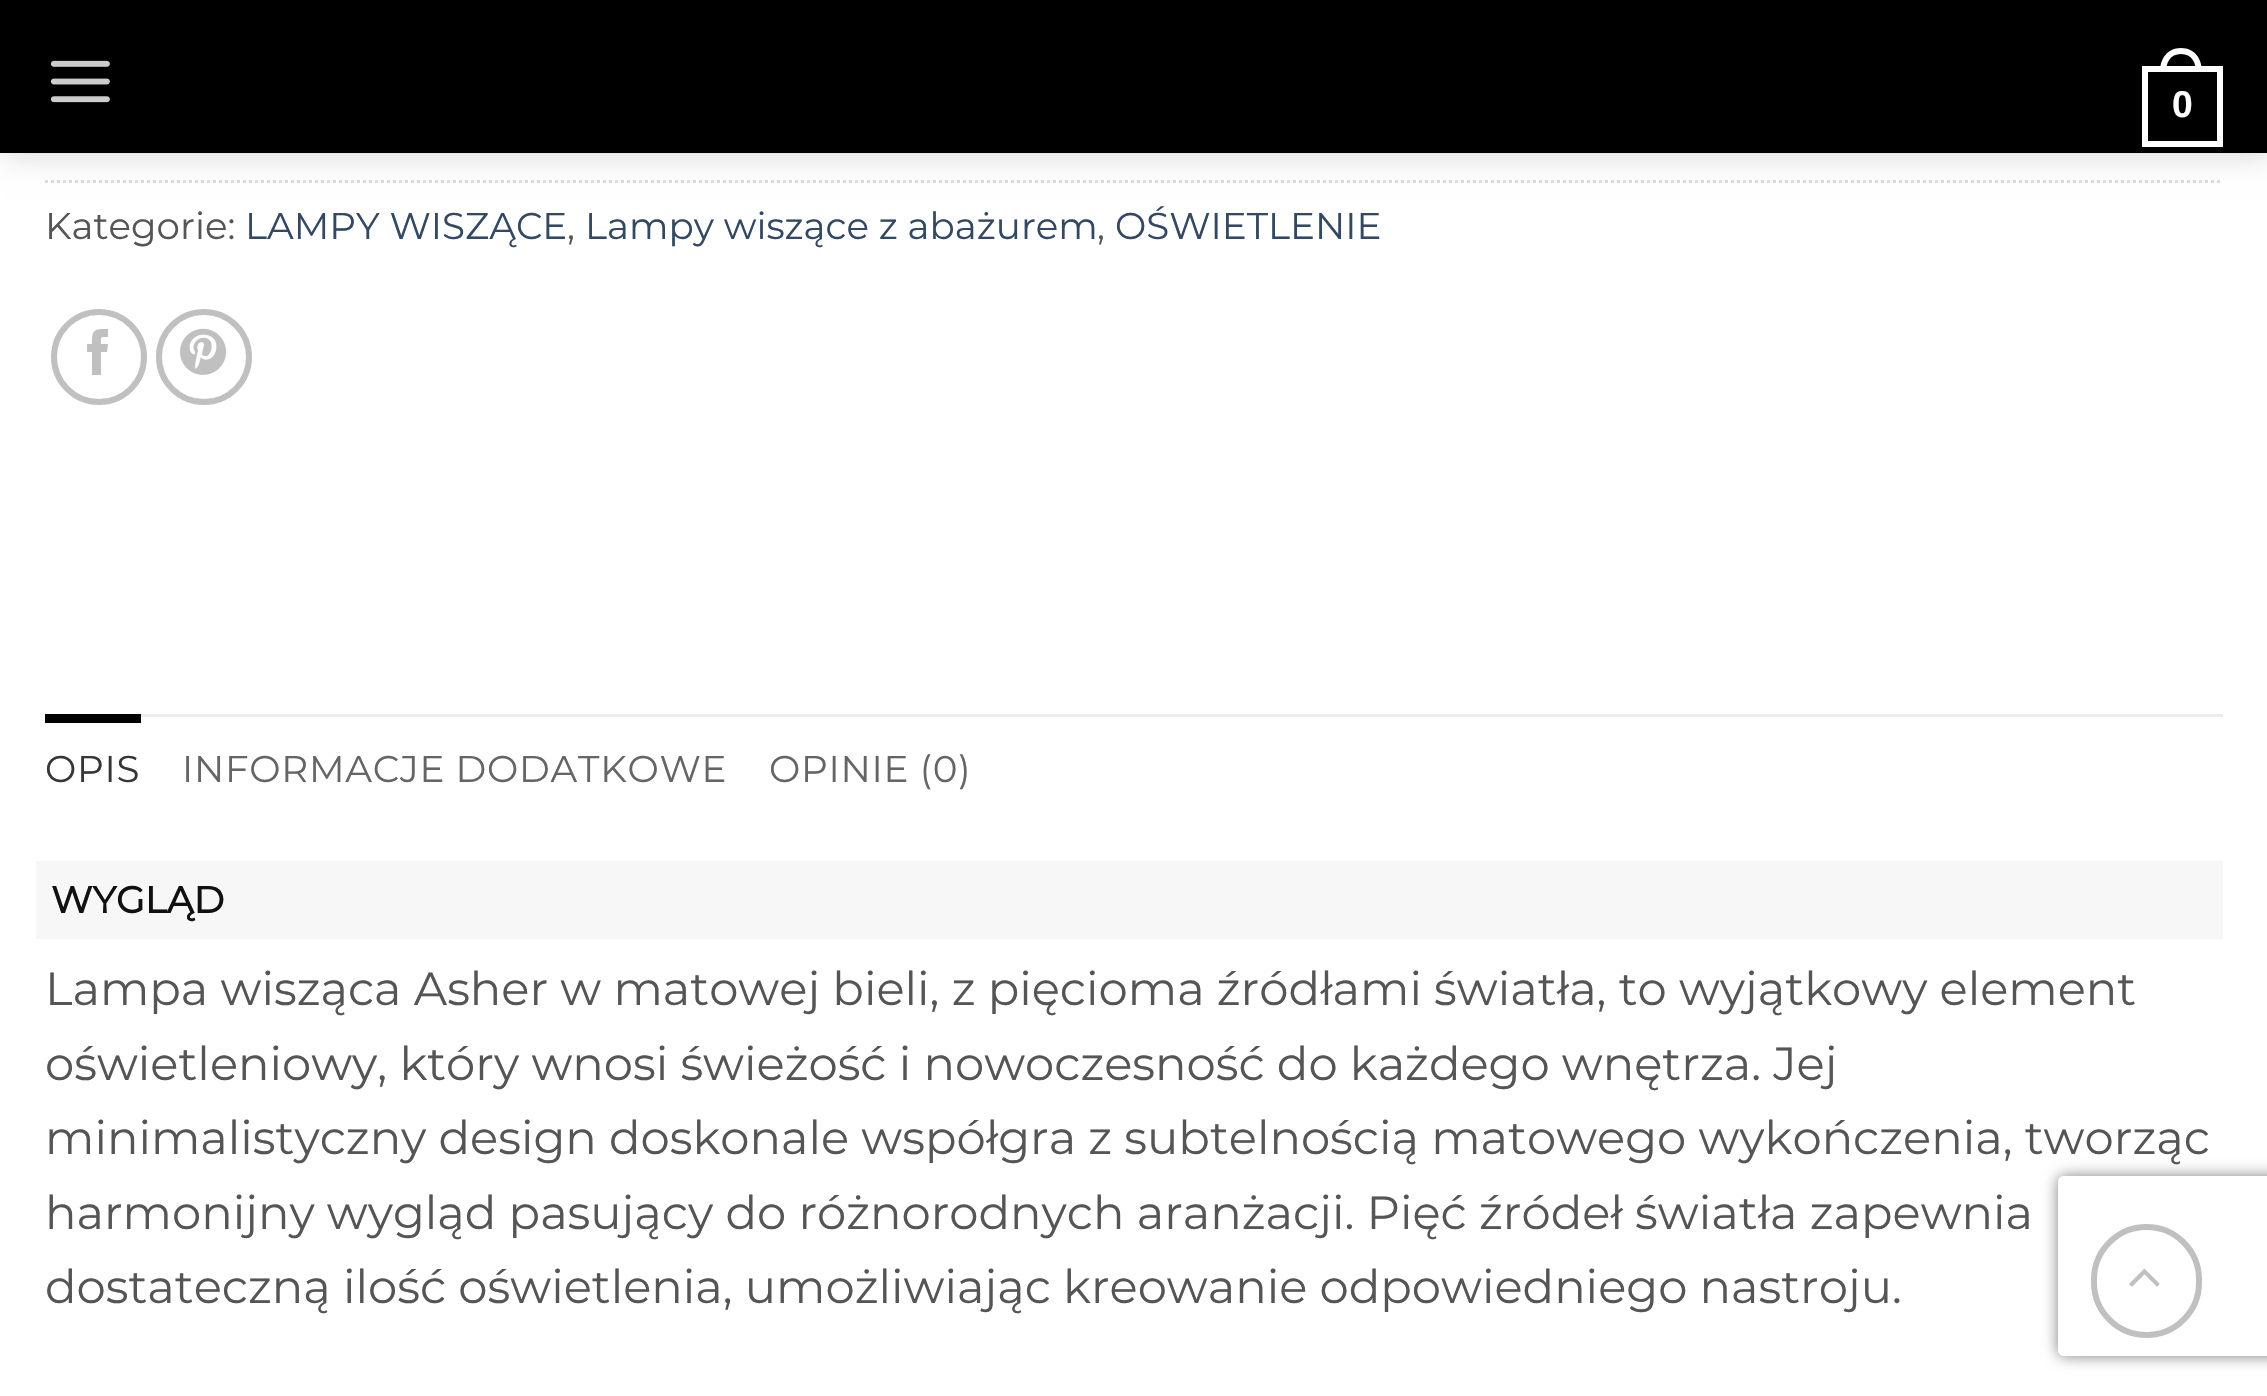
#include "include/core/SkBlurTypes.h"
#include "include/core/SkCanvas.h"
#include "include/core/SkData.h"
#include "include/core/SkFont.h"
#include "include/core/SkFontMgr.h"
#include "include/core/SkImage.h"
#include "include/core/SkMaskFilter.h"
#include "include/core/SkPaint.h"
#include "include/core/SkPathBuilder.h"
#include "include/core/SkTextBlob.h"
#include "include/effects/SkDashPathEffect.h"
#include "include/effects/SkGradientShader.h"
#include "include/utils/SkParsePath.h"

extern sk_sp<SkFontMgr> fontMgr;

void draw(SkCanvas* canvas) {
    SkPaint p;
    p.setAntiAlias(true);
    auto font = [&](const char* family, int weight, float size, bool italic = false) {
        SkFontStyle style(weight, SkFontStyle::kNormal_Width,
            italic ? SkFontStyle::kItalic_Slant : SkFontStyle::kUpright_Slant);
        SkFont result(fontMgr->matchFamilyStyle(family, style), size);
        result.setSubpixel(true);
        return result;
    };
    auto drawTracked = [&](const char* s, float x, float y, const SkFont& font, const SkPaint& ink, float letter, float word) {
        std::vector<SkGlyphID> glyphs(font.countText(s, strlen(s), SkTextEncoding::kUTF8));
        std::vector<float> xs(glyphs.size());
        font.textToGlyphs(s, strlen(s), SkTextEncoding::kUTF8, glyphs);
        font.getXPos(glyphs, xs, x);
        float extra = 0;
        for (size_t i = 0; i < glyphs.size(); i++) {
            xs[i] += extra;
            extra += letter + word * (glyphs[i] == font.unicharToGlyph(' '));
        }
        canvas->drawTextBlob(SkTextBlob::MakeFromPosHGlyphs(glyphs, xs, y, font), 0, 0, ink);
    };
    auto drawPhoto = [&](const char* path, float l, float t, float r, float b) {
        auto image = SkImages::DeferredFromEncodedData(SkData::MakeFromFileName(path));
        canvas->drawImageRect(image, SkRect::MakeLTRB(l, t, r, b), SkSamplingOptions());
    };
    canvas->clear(0xFFFFFFFF);
    p.setStyle(SkPaint::kStroke_Style);
    p.setStrokeWidth(3);
    p.setColor(0xFFDDDDDD);
    p.setPathEffect(SkDashPathEffect::Make({{3, 3}}, 0));
    canvas->drawPath(SkPathBuilder().moveTo(45, 181.5f).lineTo(2223, 181.5f).detach(), p);
    p.setPathEffect(nullptr);
    p.setStyle(SkPaint::kFill_Style);
    p.setColor(0x26000000);
    p.setMaskFilter(SkMaskFilter::MakeBlur(kNormal_SkBlurStyle, 15));
    canvas->drawRect(SkRect::MakeLTRB(3, 3, 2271, 156), p);
    p.setMaskFilter(nullptr);
    p.setColor(0xFF000000);
    canvas->drawRect(SkRect::MakeLTRB(0, 0, 2267, 153), p);
    drawPhoto("media/1.png", 50, 60, 110, 103);
    p.setStyle(SkPaint::kStroke_Style);
    p.setStrokeWidth(6);
    p.setColor(0xFFFFFFFF);
    canvas->drawRect(SkRect::MakeLTRB(2145, 69, 2220, 144), p);
    p.setStyle(SkPaint::kFill_Style);
    canvas->drawPath(SkPathBuilder(SkPathFillType::kEvenOdd).moveTo(2181, 48).cubicTo(2195, 48, 2202, 59, 2202, 72).lineTo(2160, 72).cubicTo(2160, 59, 2167, 48, 2181, 48).close().moveTo(2181, 54).cubicTo(2192, 54, 2196, 63, 2196, 72).lineTo(2166, 72).cubicTo(2166, 63, 2170, 54, 2181, 54).close().detach(), p);
    auto font1 = font("Liberation Sans", 700, 37.25f);
    canvas->drawString("0", 2172, 117, font1, p);
    auto font2 = font("Montserrat", 100, 37.25f);
    p.setColor(0xFF555555);
    canvas->drawString("Kategorie:", 45, 239, font2, p);
    p.setColor(0xFF334862);
    canvas->drawString("LAMPY WISZĄCE", 245, 239, font2, p);
    p.setColor(0xFF555555);
    canvas->drawString(",", 567, 239, font2, p);
    p.setColor(0xFF334862);
    canvas->drawString("Lampy wiszące z abażurem", 585, 239, font2, p);
    p.setColor(0xFF555555);
    canvas->drawString(",", 1097, 239, font2, p);
    p.setColor(0xFF334862);
    canvas->drawString("OŚWIETLENIE", 1115, 239, font2, p);
    p.setStyle(SkPaint::kStroke_Style);
    p.setColor(0xFFC0C0C0);
    canvas->drawCircle(99, 357, 45, p);
    p.setStyle(SkPaint::kFill_Style);
    canvas->drawPath(SkPathBuilder().moveTo(101, 375).lineTo(92, 375).lineTo(92, 352).lineTo(87, 352).lineTo(87, 344).lineTo(92, 344).cubicTo(92, 329, 94, 329, 108, 329).lineTo(108, 337).cubicTo(100, 337, 101, 336, 101, 344).lineTo(108, 344).lineTo(107, 352).lineTo(101, 352).close().detach(), p);
    p.setStyle(SkPaint::kStroke_Style);
    canvas->drawCircle(204, 357, 45, p);
    drawPhoto("media/2.png", 180, 328, 226, 375);
    p.setStyle(SkPaint::kFill_Style);
    p.setColor(0xFFECECEC);
    canvas->drawRect(SkRect::MakeLTRB(141, 714, 2223, 717), p);
    p.setColor(0xFF000000);
    canvas->drawRect(SkRect::MakeLTRB(45, 714, 141, 723), p);
    p.setColor(0xFF363636);
    drawTracked("OPIS", 45, 782, font2, p, 0.75f, 0);
    p.setColor(0xFF656565);
    drawTracked("INFORMACJE DODATKOWE", 182, 782, font2, p, 0.75f, 0);
    drawTracked("OPINIE (0)", 769, 782, font2, p, 0.75f, 0);
    p.setColor(0xFFF7F7F7);
    canvas->drawRect(SkRect::MakeLTRB(36, 861, 2223, 939), p);
    auto font3 = font("Montserrat", 700, 37.25f);
    p.setColor(0xFF111111);
    canvas->drawString("WYGLĄD", 51, 913, font3, p);
    auto font4 = font("Montserrat", 100, 46.55f);
    p.setColor(0xFF555555);
    {
        const struct { const char* s; float x, y; } items[] = {
            {"Lampa wisząca Asher w matowej bieli, z pięcioma źródłami światła, to wyjątkowy element", 45, 1005},
            {"oświetleniowy, który wnosi świeżość i nowoczesność do każdego wnętrza. Jej", 45, 1080},
            {"minimalistyczny design doskonale współgra z subtelnością matowego wykończenia, tworząc", 45, 1154},
            {"harmonijny wygląd pasujący do różnorodnych aranżacji. Pięć źródeł światła zapewnia", 45, 1229},
            {"dostateczną ilość oświetlenia, umożliwiając kreowanie odpowiedniego nastroju.", 45, 1303},
        };
        for (auto [s, x, y] : items) {
            canvas->drawString(s, x, y, font4, p);
        }
    }
    canvas->save();
    canvas->clipPath(SkPathBuilder(SkPathFillType::kEvenOdd).moveTo(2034, 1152).lineTo(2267, 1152).lineTo(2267, 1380).lineTo(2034, 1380).close().moveTo(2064, 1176).lineTo(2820, 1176).cubicTo(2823.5f, 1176, 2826, 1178.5f, 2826, 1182).lineTo(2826, 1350).cubicTo(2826, 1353.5f, 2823.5f, 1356, 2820, 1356).lineTo(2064, 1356).cubicTo(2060.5f, 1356, 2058, 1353.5f, 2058, 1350).lineTo(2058, 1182).cubicTo(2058, 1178.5f, 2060.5f, 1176, 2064, 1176).close().detach(), true);
    p.setColor(0xFF808080);
    p.setMaskFilter(SkMaskFilter::MakeBlur(kNormal_SkBlurStyle, 7.5f));
    canvas->drawRoundRect(SkRect::MakeLTRB(2058, 1176, 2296, 1356), 6, 6, p);
    p.setMaskFilter(nullptr);
    canvas->restore();
    p.setStyle(SkPaint::kStroke_Style);
    p.setColor(0xFFC0C0C0);
    canvas->drawRoundRect(SkRect::MakeLTRB(2094, 1227, 2199, 1335), 52.5f, 52.5f, p);
    drawPhoto("media/3.png", 2129, 1269, 2160, 1287);
}
